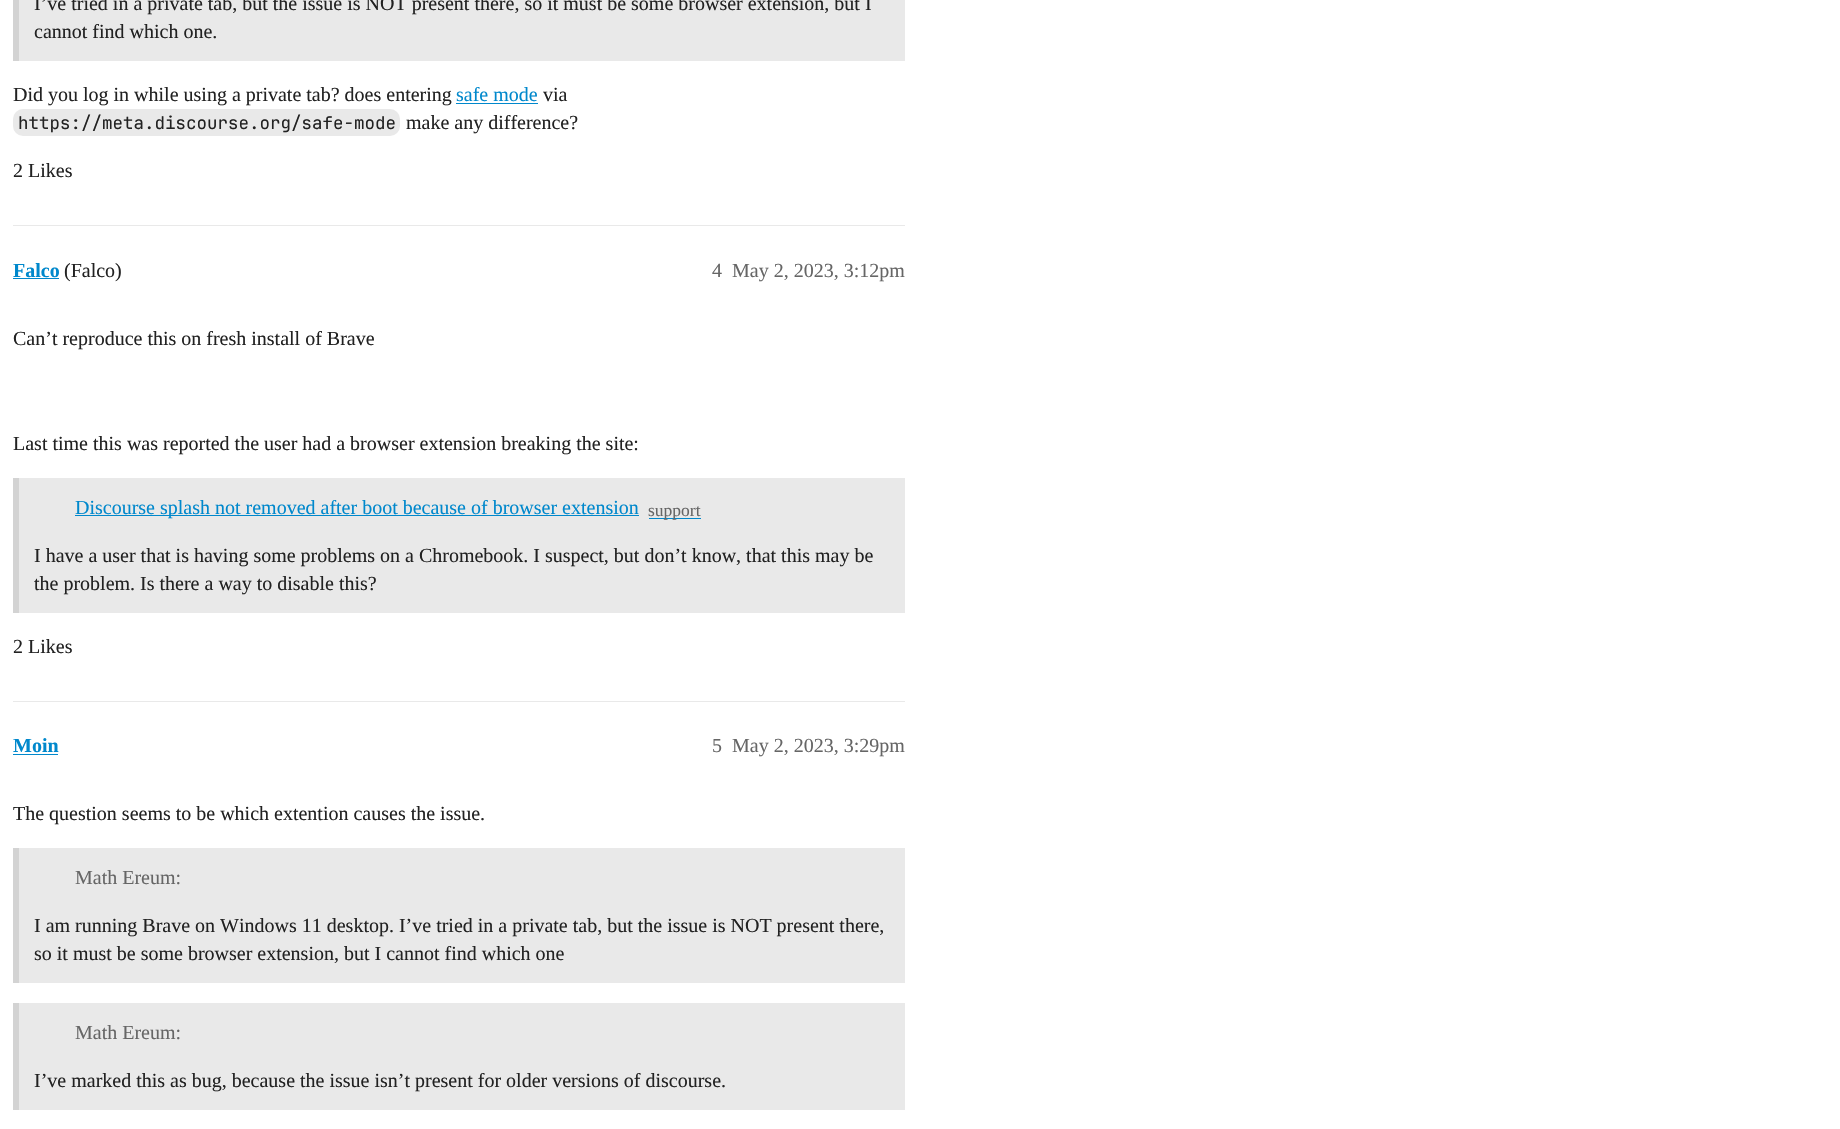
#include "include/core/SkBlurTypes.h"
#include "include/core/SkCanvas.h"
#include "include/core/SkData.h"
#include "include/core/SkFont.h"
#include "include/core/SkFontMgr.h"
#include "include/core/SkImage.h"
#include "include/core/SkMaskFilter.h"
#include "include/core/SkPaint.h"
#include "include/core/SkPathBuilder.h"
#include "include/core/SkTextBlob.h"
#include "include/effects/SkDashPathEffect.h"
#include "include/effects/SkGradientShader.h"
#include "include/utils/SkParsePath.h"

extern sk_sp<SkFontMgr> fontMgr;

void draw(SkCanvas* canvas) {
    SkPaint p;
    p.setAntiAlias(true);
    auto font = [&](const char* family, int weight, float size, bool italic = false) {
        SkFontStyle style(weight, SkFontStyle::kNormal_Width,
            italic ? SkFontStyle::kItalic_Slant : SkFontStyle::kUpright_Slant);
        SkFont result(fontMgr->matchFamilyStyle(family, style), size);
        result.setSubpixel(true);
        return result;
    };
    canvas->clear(0xFFFFFFFF);
    p.setColor(0xFFE9E9E9);
    canvas->drawRect(SkRect::MakeLTRB(19, 0, 905, 61), p);
    p.setColor(0xFFD3D3D3);
    canvas->drawRect(SkRect::MakeLTRB(13, 0, 19, 61), p);
    auto font1 = font("Liberation Serif", 400, 20);
    p.setColor(0xFF222222);
    {
        const struct { const char* s; float x, y; } items[] = {
            {"I’ve tried in a private tab, but the issue is NOT present there, so it must be some browser extension, but I", 34, 10},
            {"cannot find which one.", 34, 38},
            {"Did you log in while using a private tab? does entering", 13, 101},
        };
        for (auto [s, x, y] : items) {
            canvas->drawString(s, x, y, font1, p);
        }
    }
    p.setColor(0xFF0088CC);
    canvas->drawString("safe mode", 456, 101, font1, p);
    canvas->drawRect(SkRect::MakeLTRB(456, 103, 538, 104), p);
    p.setColor(0xFF222222);
    canvas->drawString("via", 543, 101, font1, p);
    p.setColor(0xFFE9E9E9);
    canvas->drawRoundRect(SkRect::MakeLTRB(13, 109, 400, 136), 10, 10, p);
    auto font2 = font("JetBrains Mono", 400, 17.5f);
    p.setColor(0xFF222222);
    canvas->drawString("https://meta.discourse.org/safe-mode", 18, 129, font2, p);
    canvas->drawString("make any difference?", 406, 129, font1, p);
    canvas->drawString("2 Likes", 13, 177, font1, p);
    p.setColor(0xFFE9E9E9);
    canvas->drawRect(SkRect::MakeLTRB(13, 225, 905, 226), p);
    auto font3 = font("Liberation Serif", 700, 20);
    p.setColor(0xFF0088CC);
    canvas->drawString("Falco", 13, 277, font3, p);
    canvas->drawRect(SkRect::MakeLTRB(13, 278, 59, 279), p);
    p.setColor(0xFF222222);
    canvas->drawString("(Falco)", 64, 277, font1, p);
    p.setColor(0xFF666666);
    canvas->drawString("4", 712, 277, font1, p);
    canvas->drawString("May 2, 2023, 3:12pm", 732, 277, font1, p);
    p.setColor(0xFF222222);
    canvas->drawString("Can’t reproduce this on fresh install of Brave", 13, 345, font1, p);
    canvas->drawString("Last time this was reported the user had a browser extension breaking the site:", 13, 450, font1, p);
    {
        const struct { float l, t, r, b; SkColor color; } items[] = {
            {19, 478, 905, 613, 0xFFE9E9E9},
            {13, 478, 19, 613, 0xFFD3D3D3},
            {75, 515, 639, 516, 0xFF0088CC},
        };
        for (auto [l, t, r, b, color] : items) {
            p.setColor(color);
            canvas->drawRect(SkRect::MakeLTRB(l, t, r, b), p);
        }
    }
    canvas->drawString("Discourse splash not removed after boot because of browser extension", 75, 514, font1, p);
    canvas->drawRect(SkRect::MakeLTRB(649, 518, 701, 519), p);
    auto font4 = font("Liberation Serif", 400, 17.5f);
    p.setColor(0xFF666666);
    canvas->drawString("support", 648, 516, font4, p);
    p.setColor(0xFF222222);
    {
        const struct { const char* s; float x, y; } items[] = {
            {"I have a user that is having some problems on a Chromebook. I suspect, but don’t know, that this may be", 34, 562},
            {"the problem. Is there a way to disable this?", 34, 590},
            {"2 Likes", 13, 653},
        };
        for (auto [s, x, y] : items) {
            canvas->drawString(s, x, y, font1, p);
        }
    }
    p.setColor(0xFFE9E9E9);
    canvas->drawRect(SkRect::MakeLTRB(13, 701, 905, 702), p);
    p.setColor(0xFF0088CC);
    canvas->drawString("Moin", 13, 752, font3, p);
    canvas->drawRect(SkRect::MakeLTRB(13, 754, 58, 755), p);
    p.setColor(0xFF666666);
    canvas->drawString("5", 712, 752, font1, p);
    canvas->drawString("May 2, 2023, 3:29pm", 732, 752, font1, p);
    canvas->save();
    canvas->clipRect(SkRect::MakeLTRB(13, 780, 905, 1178));
    p.setColor(0xFF222222);
    canvas->drawString("The question seems to be which extention causes the issue.", 13, 820, font1, p);
    canvas->restore();
    p.setColor(0xFFE9E9E9);
    canvas->drawRect(SkRect::MakeLTRB(19, 848, 905, 983), p);
    p.setColor(0xFFD3D3D3);
    canvas->drawRect(SkRect::MakeLTRB(13, 848, 19, 983), p);
    p.setColor(0xFF666666);
    canvas->drawString("Math Ereum:", 75, 884, font1, p);
    p.setColor(0xFF222222);
    canvas->drawString("I am running Brave on Windows 11 desktop. I’ve tried in a private tab, but the issue is NOT present there,", 34, 932, font1, p);
    canvas->drawString("so it must be some browser extension, but I cannot find which one", 34, 960, font1, p);
    p.setColor(0xFFE9E9E9);
    canvas->drawRect(SkRect::MakeLTRB(19, 1003, 905, 1110), p);
    p.setColor(0xFFD3D3D3);
    canvas->drawRect(SkRect::MakeLTRB(13, 1003, 19, 1110), p);
    p.setColor(0xFF666666);
    canvas->drawString("Math Ereum:", 75, 1039, font1, p);
    p.setColor(0xFF222222);
    canvas->drawString("I’ve marked this as bug, because the issue isn’t present for older versions of discourse.", 34, 1087, font1, p);
}
